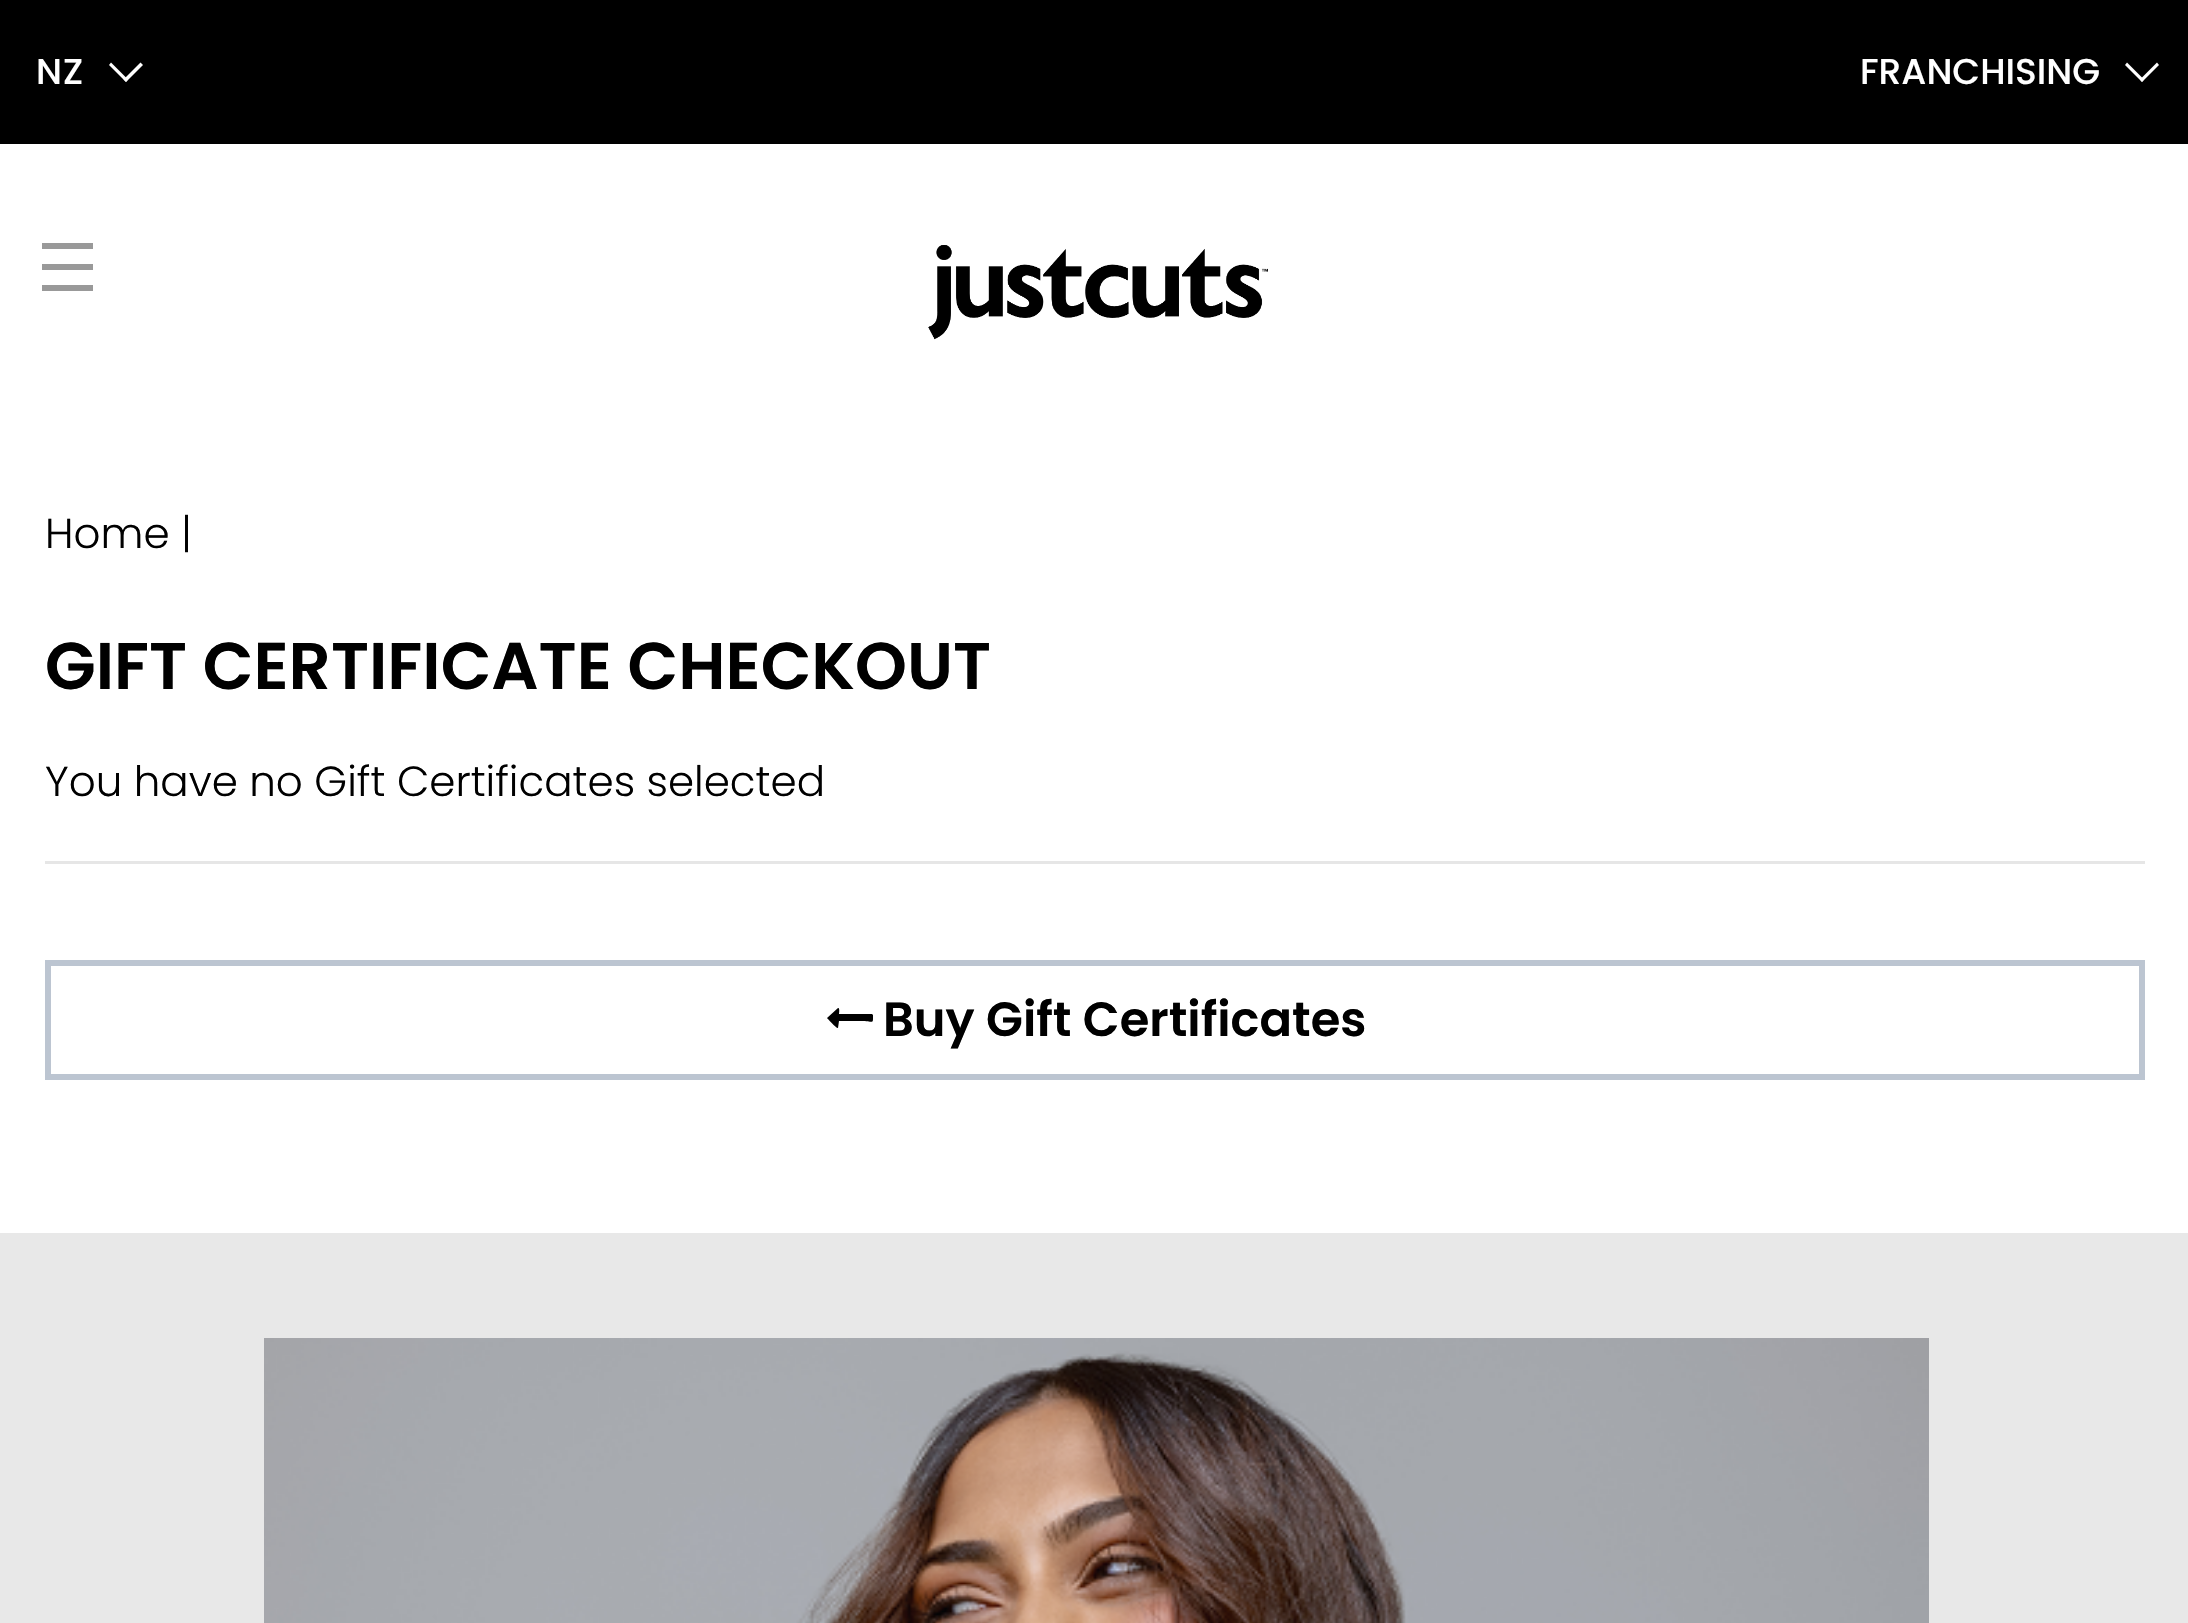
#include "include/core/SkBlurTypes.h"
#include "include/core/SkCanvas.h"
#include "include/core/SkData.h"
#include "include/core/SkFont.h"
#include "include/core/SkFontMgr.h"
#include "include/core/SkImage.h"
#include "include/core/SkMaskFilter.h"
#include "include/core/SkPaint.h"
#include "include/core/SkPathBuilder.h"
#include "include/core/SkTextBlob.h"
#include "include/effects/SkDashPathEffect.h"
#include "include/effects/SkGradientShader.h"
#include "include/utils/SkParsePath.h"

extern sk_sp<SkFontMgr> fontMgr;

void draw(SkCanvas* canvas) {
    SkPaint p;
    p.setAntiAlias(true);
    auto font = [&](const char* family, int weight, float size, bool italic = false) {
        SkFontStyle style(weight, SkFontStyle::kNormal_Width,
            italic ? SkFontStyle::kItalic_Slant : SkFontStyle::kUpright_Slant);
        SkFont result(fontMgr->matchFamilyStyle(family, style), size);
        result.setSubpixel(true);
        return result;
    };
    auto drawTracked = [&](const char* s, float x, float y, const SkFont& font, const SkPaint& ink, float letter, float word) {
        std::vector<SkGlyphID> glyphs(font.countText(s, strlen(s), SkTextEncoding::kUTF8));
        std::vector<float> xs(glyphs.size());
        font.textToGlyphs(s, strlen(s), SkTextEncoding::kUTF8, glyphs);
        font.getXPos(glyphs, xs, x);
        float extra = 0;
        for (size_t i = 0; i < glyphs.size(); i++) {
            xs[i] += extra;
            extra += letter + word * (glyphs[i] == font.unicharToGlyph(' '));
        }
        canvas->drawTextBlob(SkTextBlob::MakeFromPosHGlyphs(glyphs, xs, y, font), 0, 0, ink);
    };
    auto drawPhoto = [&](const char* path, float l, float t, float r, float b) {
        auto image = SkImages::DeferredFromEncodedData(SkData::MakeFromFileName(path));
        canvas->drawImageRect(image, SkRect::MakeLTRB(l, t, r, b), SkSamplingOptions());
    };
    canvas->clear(0xFFFFFFFF);
    p.setColor(0xFF000000);
    canvas->drawRect(SkRect::MakeLTRB(0, 0, 2188, 144), p);
    auto font1 = font("Poppins", 500, 36);
    p.setColor(0xFFFFFFFF);
    drawTracked("NZ", 36, 84, font1, p, 1, 0);
    canvas->drawPath(SkPathBuilder().moveTo(140.5f, 62.5f).lineTo(143, 65).lineTo(126, 82).lineTo(123.5f, 79.5f).close().detach(), p);
    canvas->drawPath(SkPathBuilder().moveTo(111, 62.5f).lineTo(128, 79.5f).lineTo(126, 82).lineTo(109, 65).close().detach(), p);
    canvas->drawString("FRANCHISING", 1860, 84, font1, p);
    canvas->drawPath(SkPathBuilder().moveTo(2157, 62.5f).lineTo(2159, 65).lineTo(2142, 82).lineTo(2140, 79.5f).close().detach(), p);
    canvas->drawPath(SkPathBuilder().moveTo(2127, 62.5f).lineTo(2144, 79.5f).lineTo(2142, 82).lineTo(2125, 65).close().detach(), p);
    {
        const struct { float l, t, r, b; SkColor color; } items[] = {
            {42, 243, 93, 249, 0xFF999999},
            {42, 285, 93, 291, 0xFF999999},
            {42, 264, 93, 270, 0xFF999999},
        };
        for (auto [l, t, r, b, color] : items) {
            p.setColor(color);
            canvas->drawRect(SkRect::MakeLTRB(l, t, r, b), p);
        }
    }
    drawPhoto("media/1.png", 928, 245, 1268, 340);
    auto font2 = font("Poppins", 300, 42);
    p.setColor(0xFF000000);
    canvas->drawString("Home |", 45, 548, font2, p);
    auto font3 = font("Poppins", 600, 66);
    canvas->drawString("GIFT CERTIFICATE CHECKOUT", 45, 689, font3, p);
    canvas->drawString("You have no Gift Certificates selected", 45, 796, font2, p);
    p.setColor(0xFFE6E6E6);
    canvas->drawRect(SkRect::MakeLTRB(45, 861, 2145, 864), p);
    p.setStyle(SkPaint::kStroke_Style);
    p.setStrokeWidth(6);
    p.setColor(0xFFBCC5D1);
    canvas->drawRect(SkRect::MakeLTRB(48, 963, 2142, 1077), p);
    p.setStyle(SkPaint::kFill_Style);
    p.setColor(0xFF000000);
    canvas->drawPath(SkPathBuilder().moveTo(873, 1015).cubicTo(873, 1025, 874, 1021, 861, 1021).lineTo(839, 1021).lineTo(838, 1028).cubicTo(837, 1029, 827, 1018, 827, 1018).lineTo(838, 1008).cubicTo(840, 1007, 839, 1014, 839, 1014).lineTo(872, 1014).close().detach(), p);
    auto font4 = font("Poppins", 600, 48);
    canvas->drawString("Buy Gift Certificates", 883, 1036, font4, p);
    p.setColor(0xFFE8E8E8);
    canvas->drawRect(SkRect::MakeLTRB(0, 1233, 2188, 1623), p);
    drawPhoto("media/2.png", 264, 1338, 1929, 1623);
}
